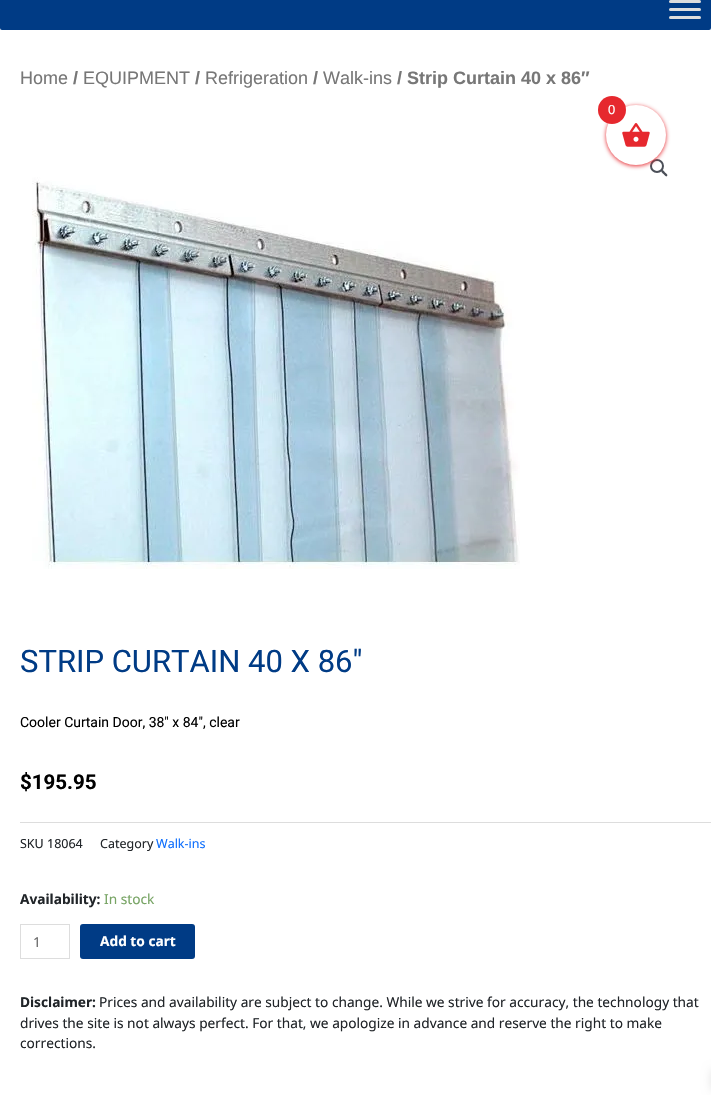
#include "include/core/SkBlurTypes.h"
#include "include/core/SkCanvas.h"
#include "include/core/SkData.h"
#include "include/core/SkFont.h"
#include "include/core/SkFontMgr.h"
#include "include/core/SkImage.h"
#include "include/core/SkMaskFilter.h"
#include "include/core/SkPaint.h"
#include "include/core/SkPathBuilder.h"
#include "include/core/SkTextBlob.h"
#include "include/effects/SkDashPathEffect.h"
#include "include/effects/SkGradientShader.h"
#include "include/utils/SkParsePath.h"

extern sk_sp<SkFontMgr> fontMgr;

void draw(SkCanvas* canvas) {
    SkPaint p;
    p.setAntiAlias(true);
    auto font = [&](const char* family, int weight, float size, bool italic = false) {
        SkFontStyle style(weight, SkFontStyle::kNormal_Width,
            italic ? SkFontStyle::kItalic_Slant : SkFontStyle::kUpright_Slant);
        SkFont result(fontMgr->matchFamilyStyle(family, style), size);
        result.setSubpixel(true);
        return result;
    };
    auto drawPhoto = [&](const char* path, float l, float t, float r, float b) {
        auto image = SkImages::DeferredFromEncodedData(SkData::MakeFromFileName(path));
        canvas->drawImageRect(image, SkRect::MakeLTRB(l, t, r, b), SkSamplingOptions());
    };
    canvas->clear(0xFFFFFFFF);
    p.setColor(0xFFF7F7F7);
    canvas->drawRect(SkRect::MakeLTRB(0, 28, 711, 30), p);
    p.setColor(0xFF003B85);
    canvas->drawRoundRect(SkRect::MakeLTRB(0, -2, 711, 30), 2, 2, p);
    p.setColor(0xFFDDDDDD);
    canvas->drawRoundRect(SkRect::MakeLTRB(669, 0, 701, 3), 1.5f, 1.5f, p);
    canvas->drawRoundRect(SkRect::MakeLTRB(669, 8, 701, 11), 1.5f, 1.5f, p);
    canvas->drawRoundRect(SkRect::MakeLTRB(669, 16, 701, 19), 1.5f, 1.5f, p);
    auto font1 = font("Liberation Sans", 400, 18);
    p.setColor(0xFF777777);
    canvas->drawString("Home", 20, 84, font1, p);
    auto font2 = font("Liberation Sans", 700, 18);
    canvas->drawString("/", 73, 84, font2, p);
    canvas->drawString("EQUIPMENT", 83, 84, font1, p);
    canvas->drawString("/", 195, 84, font2, p);
    canvas->drawString("Refrigeration", 205, 84, font1, p);
    canvas->drawString("/", 313, 84, font2, p);
    canvas->drawString("Walk-ins", 323, 84, font1, p);
    canvas->drawString("/ Strip Curtain 40 x 86″", 397, 84, font2, p);
    p.setStyle(SkPaint::kStroke_Style);
    p.setStrokeWidth(2);
    p.setColor(0xFF4B4F58);
    canvas->drawCircle(657, 166, 6, p);
    p.setStyle(SkPaint::kFill_Style);
    canvas->drawPath(SkPathBuilder().moveTo(661.5f, 170.5f).cubicTo(662.5f, 169, 664.5f, 172, 665, 172.5f).cubicTo(665.5f, 173, 668.5f, 175, 667, 176).cubicTo(666, 177.5f, 664, 174.5f, 663.5f, 174).cubicTo(663, 173.5f, 660.5f, 171.5f, 661.5f, 170.5f).close().detach(), p);
    drawPhoto("media/1.png", 32, 177, 520, 569);
    auto font3 = font("Roboto", 400, 31);
    p.setColor(0xFF003B85);
    canvas->drawString("STRIP CURTAIN 40 X 86″", 20, 672, font3, p);
    auto font4 = font("Roboto", 400, 14);
    p.setColor(0xFF000000);
    canvas->drawString("Cooler Curtain Door, 38″ x 84″, clear", 20, 727, font4, p);
    auto font5 = font("Roboto", 700, 20.5f);
    canvas->drawString("$195.95", 20, 789, font5, p);
    p.setColor(0xFFDDDDDD);
    canvas->drawRect(SkRect::MakeLTRB(20, 822, 711, 823), p);
    auto font6 = font("Noto Sans", 400, 12.5f);
    p.setColor(0xFF212529);
    canvas->drawString("SKU 18064", 20, 848, font6, p);
    canvas->drawString("Category", 100, 848, font6, p);
    p.setColor(0xFF0D6EFD);
    canvas->drawString("Walk-ins", 156, 848, font6, p);
    auto font7 = font("Noto Sans", 700, 13.7f);
    p.setColor(0xFF212529);
    canvas->drawString("Availability:", 20, 904, font7, p);
    auto font8 = font("Noto Sans", 400, 13.7f);
    p.setColor(0xFF77A464);
    canvas->drawString("In stock", 104, 904, font8, p);
    p.setStyle(SkPaint::kStroke_Style);
    p.setStrokeWidth(1);
    p.setColor(0xFFDDDDDD);
    canvas->drawRect(SkRect::MakeLTRB(20.5f, 924.5f, 69.5f, 958.5f), p);
    p.setStyle(SkPaint::kFill_Style);
    p.setColor(0xFF666666);
    canvas->drawString("1", 33, 947, font8, p);
    p.setColor(0xFF003B85);
    canvas->drawRoundRect(SkRect::MakeLTRB(80, 924, 195, 959), 3, 3, p);
    p.setColor(0xFFFFFFFF);
    canvas->drawString("Add to cart", 100, 946, font7, p);
    p.setColor(0xFF212529);
    canvas->drawString("Disclaimer:", 20, 1007, font7, p);
    {
        const struct { const char* s; float x, y; } items[] = {
            {"Prices and availability are subject to change. While we strive for accuracy, the technology that", 99, 1007},
            {"drives the site is not always perfect. For that, we apologize in advance and reserve the right to make", 20, 1028},
            {"corrections.", 20, 1048},
        };
        for (auto [s, x, y] : items) {
            canvas->drawString(s, x, y, font8, p);
        }
    }
    p.setColor(0xFFE6282E);
    p.setMaskFilter(SkMaskFilter::MakeBlur(kNormal_SkBlurStyle, 2));
    canvas->drawRoundRect(SkRect::MakeLTRB(606, 106, 666, 166), 30, 30, p);
    p.setMaskFilter(nullptr);
    p.setColor(0xFFFFFFFF);
    canvas->drawCircle(636, 135, 30, p);
    drawPhoto("media/2.png", 622, 123, 650, 147);
    p.setColor(0xFFE6282E);
    canvas->drawCircle(612, 110, 14, p);
    auto font9 = font("Liberation Sans", 400, 13);
    p.setColor(0xFFFFFFFF);
    canvas->drawString("0", 608, 114, font9, p);
    p.setColor(0x1A000000);
    p.setMaskFilter(SkMaskFilter::MakeBlur(kNormal_SkBlurStyle, 5));
    canvas->drawRect(SkRect::MakeLTRB(711, 1070, 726, 1090), p);
    p.setMaskFilter(nullptr);
}
